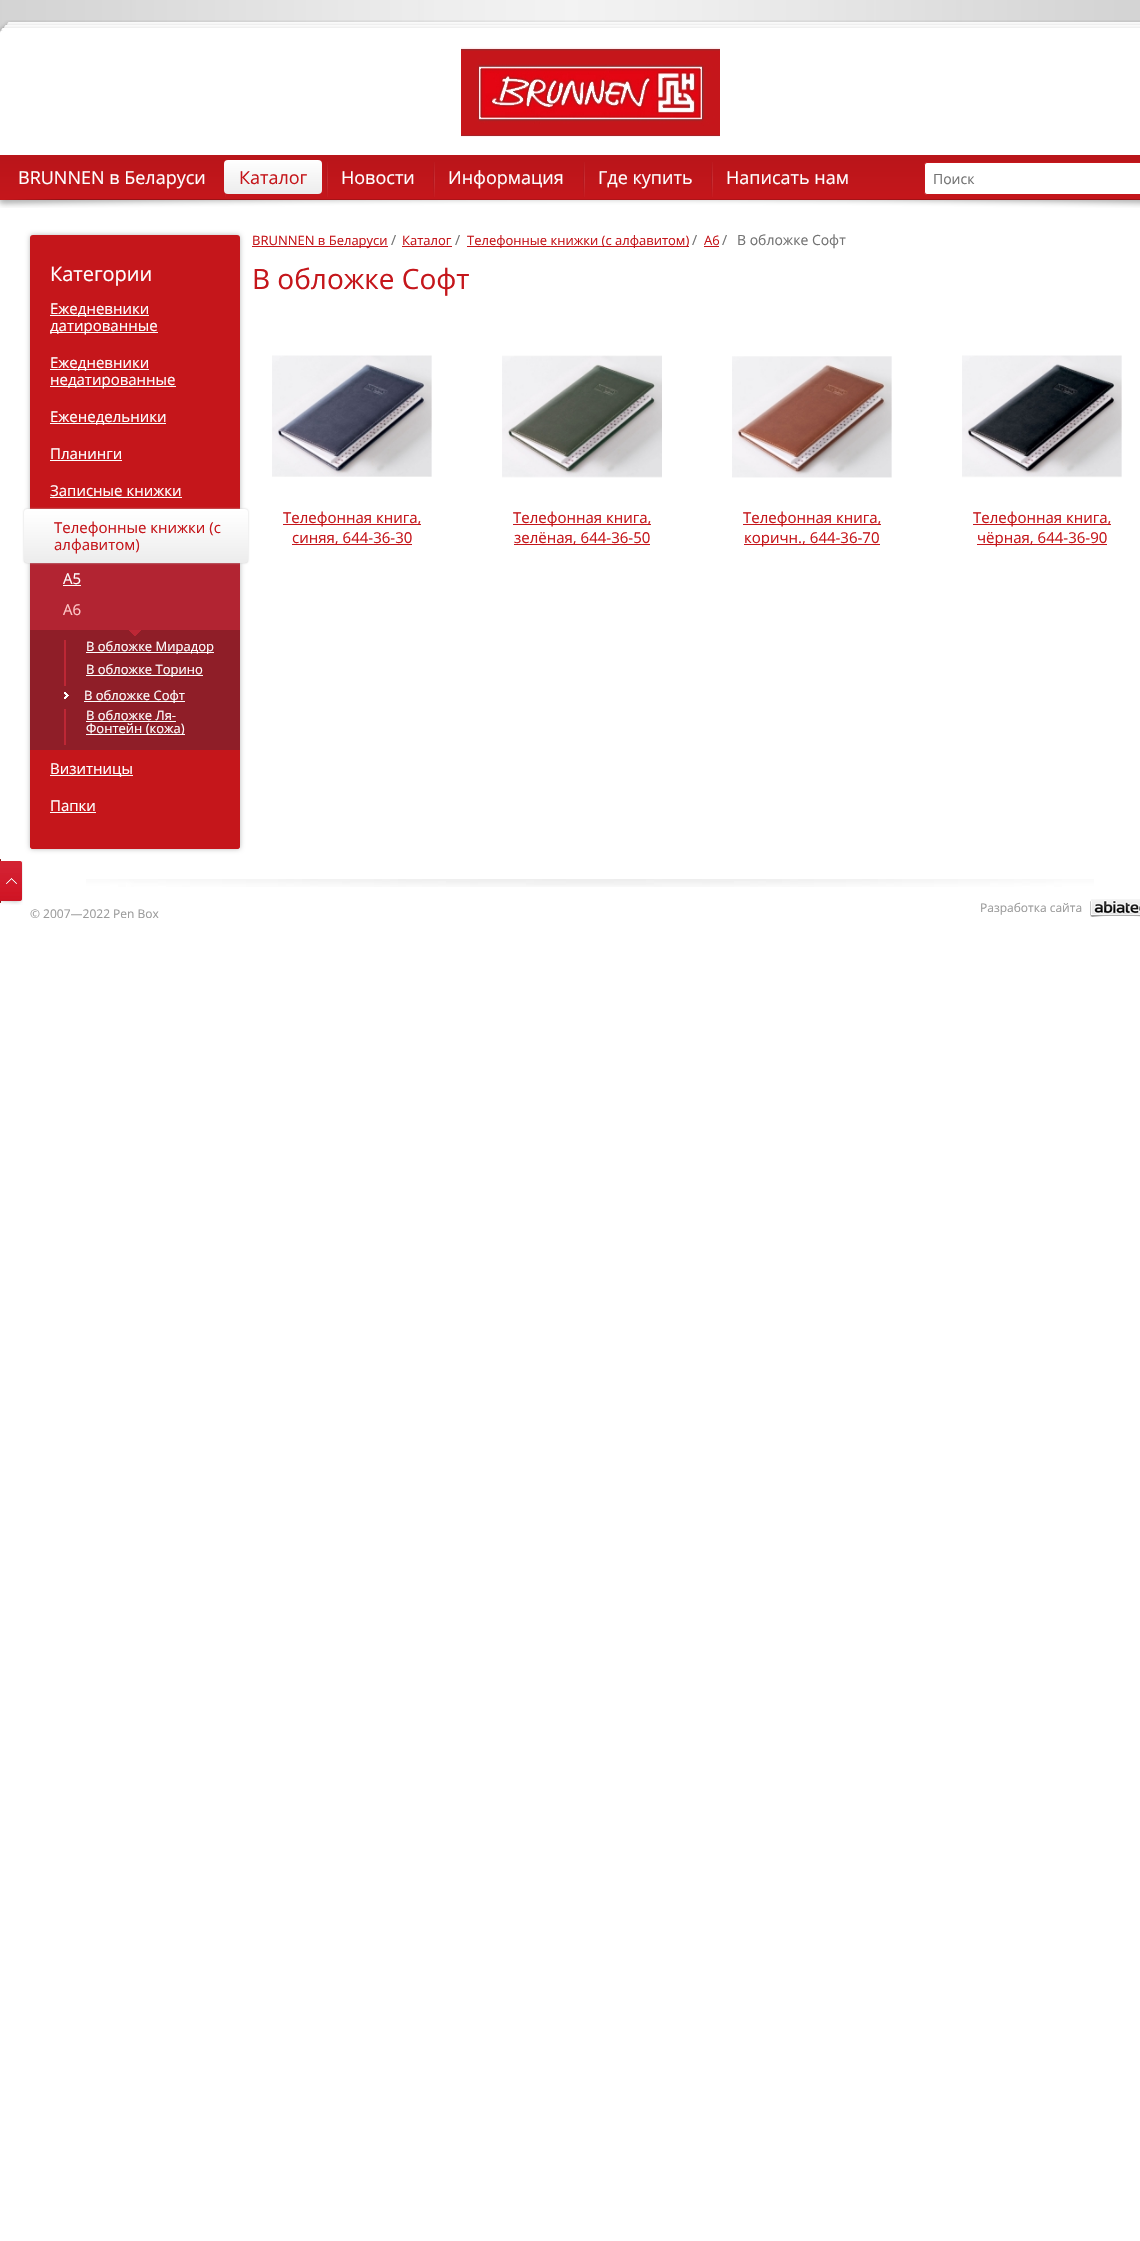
#include "include/core/SkBlurTypes.h"
#include "include/core/SkCanvas.h"
#include "include/core/SkData.h"
#include "include/core/SkFont.h"
#include "include/core/SkFontMgr.h"
#include "include/core/SkImage.h"
#include "include/core/SkMaskFilter.h"
#include "include/core/SkPaint.h"
#include "include/core/SkPathBuilder.h"
#include "include/core/SkTextBlob.h"
#include "include/effects/SkDashPathEffect.h"
#include "include/effects/SkGradientShader.h"
#include "include/utils/SkParsePath.h"

extern sk_sp<SkFontMgr> fontMgr;

void draw(SkCanvas* canvas) {
    SkPaint p;
    p.setAntiAlias(true);
    auto font = [&](const char* family, int weight, float size, bool italic = false) {
        SkFontStyle style(weight, SkFontStyle::kNormal_Width,
            italic ? SkFontStyle::kItalic_Slant : SkFontStyle::kUpright_Slant);
        SkFont result(fontMgr->matchFamilyStyle(family, style), size);
        result.setSubpixel(true);
        return result;
    };
    auto drawPhoto = [&](const char* path, float l, float t, float r, float b) {
        auto image = SkImages::DeferredFromEncodedData(SkData::MakeFromFileName(path));
        canvas->drawImageRect(image, SkRect::MakeLTRB(l, t, r, b), SkSamplingOptions());
    };
    canvas->clear(0xFFFFFFFF);
    drawPhoto("media/1.png", 0, 0, 1140, 33);
    p.setColor(0xFF808080);
    p.setMaskFilter(SkMaskFilter::MakeBlur(kNormal_SkBlurStyle, 2.5f));
    canvas->drawRoundRect(SkRect::MakeLTRB(0, 30, 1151, 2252), 3, 3, p);
    p.setMaskFilter(nullptr);
    p.setColor(0xFFFFFFFF);
    canvas->drawRoundRect(SkRect::MakeLTRB(0, 30, 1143, 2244), 3, 3, p);
    drawPhoto("media/2.png", 0, 20, 1140, 30);
    drawPhoto("media/3.png", 461, 47, 720, 137);
    {
        const SkColor colors[] = {0xFFB9151A, 0xFFC5161B};
        const float stops[] = {0, 1};
        const SkPoint ends[] = {{591, 155}, {591, 200}};
        p.setShader(SkGradientShader::MakeLinear(ends, colors, stops, 2, SkTileMode::kClamp));
        p.setAlpha(255);
    }
    canvas->drawRect(SkRect::MakeLTRB(0, 155, 1140, 200), p);
    auto font1 = font("Open Sans", 400, 18);
    p.setShader(nullptr);
    p.setColor(0xFFFFFFFF);
    canvas->drawString("BRUNNEN в Беларуси", 18, 184, font1, p);
    drawPhoto("media/4.png", 224, 162, 226, 197);
    {
        const SkColor colors[] = {0xFFFFFFFF, 0xFFECECEC};
        const float stops[] = {0, 1};
        const SkPoint ends[] = {{273, 160}, {273, 194}};
        p.setShader(SkGradientShader::MakeLinear(ends, colors, stops, 2, SkTileMode::kClamp));
        p.setAlpha(255);
    }
    canvas->drawRoundRect(SkRect::MakeLTRB(224, 160, 322, 194), 4, 4, p);
    p.setShader(nullptr);
    p.setColor(0xFFC5161B);
    canvas->drawString("Каталог", 239, 184, font1, p);
    drawPhoto("media/4.png", 326, 162, 328, 197);
    p.setColor(0xFFFFFFFF);
    canvas->drawString("Новости", 341, 184, font1, p);
    drawPhoto("media/4.png", 433, 162, 435, 197);
    canvas->drawString("Информация", 448, 184, font1, p);
    drawPhoto("media/4.png", 583, 162, 585, 197);
    canvas->drawString("Где купить", 598, 184, font1, p);
    drawPhoto("media/4.png", 711, 162, 713, 197);
    canvas->drawString("Написать нам", 726, 184, font1, p);
    canvas->drawRoundRect(SkRect::MakeLTRB(924.5f, 162.5f, 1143.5f, 194.5f), 2.5f, 2.5f, p);
    p.setStyle(SkPaint::kStroke_Style);
    p.setStrokeWidth(1);
    p.setColor(0xFFC5161B);
    canvas->drawRoundRect(SkRect::MakeLTRB(924.5f, 162.5f, 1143.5f, 194.5f), 2.5f, 2.5f, p);
    auto font2 = font("Open Sans", 400, 14);
    p.setStyle(SkPaint::kFill_Style);
    p.setColor(0xFF737373);
    canvas->drawString("Поиск", 933, 184, font2, p);
    drawPhoto("media/5.png", 0, 199, 1140, 208);
    p.setColor(0xFFB9B9B9);
    p.setMaskFilter(SkMaskFilter::MakeBlur(kNormal_SkBlurStyle, 2.5f));
    canvas->drawRoundRect(SkRect::MakeLTRB(30, 235, 240, 849), 3, 3, p);
    p.setMaskFilter(nullptr);
    p.setColor(0xFFC5161B);
    canvas->drawRoundRect(SkRect::MakeLTRB(30, 235, 240, 849), 3, 3, p);
    auto font3 = font("Open Sans", 400, 20);
    p.setColor(0xFFFFFFFF);
    canvas->drawString("Категории", 50, 281, font3, p);
    canvas->drawRect(SkRect::MakeLTRB(50, 315, 149, 316), p);
    auto font4 = font("Open Sans", 400, 15);
    canvas->drawString("Ежедневники", 50, 314, font4, p);
    canvas->drawRect(SkRect::MakeLTRB(50, 332, 158, 333), p);
    canvas->drawString("датированные", 50, 331, font4, p);
    canvas->drawRect(SkRect::MakeLTRB(50, 369, 149, 370), p);
    canvas->drawString("Ежедневники", 50, 368, font4, p);
    canvas->drawRect(SkRect::MakeLTRB(50, 386, 176, 387), p);
    canvas->drawString("недатированные", 50, 385, font4, p);
    canvas->drawRect(SkRect::MakeLTRB(50, 423, 166, 424), p);
    canvas->drawString("Еженедельники", 50, 422, font4, p);
    canvas->drawString("Планинги", 50, 459, font4, p);
    canvas->drawRect(SkRect::MakeLTRB(50, 460, 122, 461), p);
    canvas->drawString("Записные книжки", 50, 496, font4, p);
    canvas->drawRect(SkRect::MakeLTRB(50, 497, 182, 498), p);
    p.setColor(0xFFB22432);
    canvas->drawRect(SkRect::MakeLTRB(30, 563, 240, 630), p);
    p.setColor(0xFFCCCCCC);
    p.setMaskFilter(SkMaskFilter::MakeBlur(kNormal_SkBlurStyle, 1));
    canvas->drawRoundRect(SkRect::MakeLTRB(24, 509, 248, 563), 3, 3, p);
    p.setMaskFilter(nullptr);
    {
        const SkColor colors[] = {0xFFFFFFFF, 0xFFFCFCFC, 0xFFECECEC};
        const float stops[] = {0, 0.21f, 1};
        const SkPoint ends[] = {{136, 509}, {136, 563}};
        p.setShader(SkGradientShader::MakeLinear(ends, colors, stops, 3, SkTileMode::kClamp));
        p.setAlpha(255);
    }
    canvas->drawRoundRect(SkRect::MakeLTRB(24, 509, 248, 563), 3, 3, p);
    p.setShader(nullptr);
    p.setColor(0xFFC5161B);
    canvas->drawString("Телефонные книжки (с", 54, 533, font4, p);
    canvas->drawString("алфавитом)", 54, 550, font4, p);
    p.setColor(0xFFFFFFFF);
    canvas->drawString("А5", 63, 584, font4, p);
    canvas->drawRect(SkRect::MakeLTRB(63, 585, 81, 586), p);
    p.setColor(0xFFFFC7C7);
    canvas->drawString("А6", 63, 615, font4, p);
    p.setColor(0xFF8F1E28);
    canvas->drawRect(SkRect::MakeLTRB(30, 630, 240, 750), p);
    drawPhoto("media/6.png", 129, 630, 141, 636);
    p.setColor(0xFFBD2735);
    canvas->drawRect(SkRect::MakeLTRB(64, 640, 66, 686), p);
    p.setColor(0xFFFFFFFF);
    canvas->drawRect(SkRect::MakeLTRB(86, 652, 214, 653), p);
    auto font5 = font("Open Sans", 400, 13);
    canvas->drawString("В обложке Мирадор", 86, 651, font5, p);
    canvas->drawRect(SkRect::MakeLTRB(86, 675, 203, 676), p);
    canvas->drawString("В обложке Торино", 86, 674, font5, p);
    drawPhoto("media/7.png", 64, 692, 69, 699);
    canvas->drawRect(SkRect::MakeLTRB(84, 701, 185, 702), p);
    canvas->drawString("В обложке Софт", 84, 700, font5, p);
    p.setColor(0xFFBD2735);
    canvas->drawRect(SkRect::MakeLTRB(64, 709, 66, 745), p);
    p.setColor(0xFFFFFFFF);
    canvas->drawString("В обложке Ля-", 86, 720, font5, p);
    canvas->drawRect(SkRect::MakeLTRB(86, 721, 176, 722), p);
    canvas->drawRect(SkRect::MakeLTRB(86, 734, 185, 735), p);
    canvas->drawString("Фонтейн (кожа)", 86, 733, font5, p);
    canvas->drawRect(SkRect::MakeLTRB(50, 775, 133, 776), p);
    canvas->drawString("Визитницы", 50, 774, font4, p);
    canvas->drawString("Папки", 50, 811, font4, p);
    canvas->drawRect(SkRect::MakeLTRB(50, 812, 96, 813), p);
    p.setColor(0xFFC5161B);
    canvas->drawPath(SkPathBuilder().moveTo(30, 824).lineTo(240, 824).lineTo(240, 846).cubicTo(240, 847.5f, 238.5f, 849, 237, 849).lineTo(33, 849).cubicTo(31.5f, 849, 30, 847.5f, 30, 846).close().detach(), p);
    canvas->drawRect(SkRect::MakeLTRB(252, 246, 388, 247), p);
    canvas->drawString("BRUNNEN в Беларуси", 252, 245, font5, p);
    p.setColor(0xFF737373);
    canvas->drawString("/", 391, 245, font2, p);
    p.setColor(0xFFC5161B);
    canvas->drawString("Каталог", 402, 245, font5, p);
    canvas->drawRect(SkRect::MakeLTRB(402, 246, 452, 247), p);
    p.setColor(0xFF737373);
    canvas->drawString("/", 455, 245, font2, p);
    p.setColor(0xFFC5161B);
    canvas->drawRect(SkRect::MakeLTRB(467, 246, 689, 247), p);
    canvas->drawString("Телефонные книжки (с алфавитом)", 467, 245, font5, p);
    p.setColor(0xFF737373);
    canvas->drawString("/", 692, 245, font2, p);
    p.setColor(0xFFC5161B);
    canvas->drawString("А6", 704, 245, font5, p);
    canvas->drawRect(SkRect::MakeLTRB(704, 246, 719, 247), p);
    p.setColor(0xFF737373);
    canvas->drawString("/", 722, 245, font2, p);
    canvas->drawString("В обложке Софт", 737, 245, font2, p);
    auto font6 = font("Open Sans", 400, 28);
    p.setColor(0xFFC5161B);
    canvas->drawString("В обложке Софт", 252, 289, font6, p);
    drawPhoto("media/8.png", 272, 355, 432, 477);
    canvas->drawRect(SkRect::MakeLTRB(283, 524, 421, 525), p);
    canvas->drawString("Телефонная книга,", 283, 523, font4, p);
    canvas->drawRect(SkRect::MakeLTRB(292, 544, 412, 545), p);
    canvas->drawString("синяя, 644-36-30", 292, 543, font4, p);
    drawPhoto("media/9.png", 502, 355, 662, 478);
    canvas->drawRect(SkRect::MakeLTRB(513, 524, 651, 525), p);
    canvas->drawString("Телефонная книга,", 513, 523, font4, p);
    canvas->drawRect(SkRect::MakeLTRB(514, 544, 650, 545), p);
    canvas->drawString("зелёная, 644-36-50", 514, 543, font4, p);
    drawPhoto("media/10.png", 732, 356, 892, 478);
    canvas->drawRect(SkRect::MakeLTRB(743, 524, 881, 525), p);
    canvas->drawString("Телефонная книга,", 743, 523, font4, p);
    canvas->drawRect(SkRect::MakeLTRB(744, 544, 880, 545), p);
    canvas->drawString("коричн., 644-36-70", 744, 543, font4, p);
    drawPhoto("media/11.png", 962, 355, 1122, 478);
    canvas->drawRect(SkRect::MakeLTRB(973, 524, 1111, 525), p);
    canvas->drawString("Телефонная книга,", 973, 523, font4, p);
    canvas->drawRect(SkRect::MakeLTRB(977, 544, 1107, 545), p);
    canvas->drawString("чёрная, 644-36-90", 977, 543, font4, p);
    drawPhoto("media/12.png", 86, 879, 1094, 887);
    drawPhoto("media/13.png", 0, 859, 23, 905);
    auto font7 = font("Open Sans", 400, 12);
    p.setColor(0xFF9B9B9B);
    canvas->drawString("© 2007—2022 Pen Box", 30, 918, font7, p);
    drawPhoto("media/14.png", 1090, 899, 1140, 917);
    canvas->drawString("Разработка сайта", 980, 912, font7, p);
}
